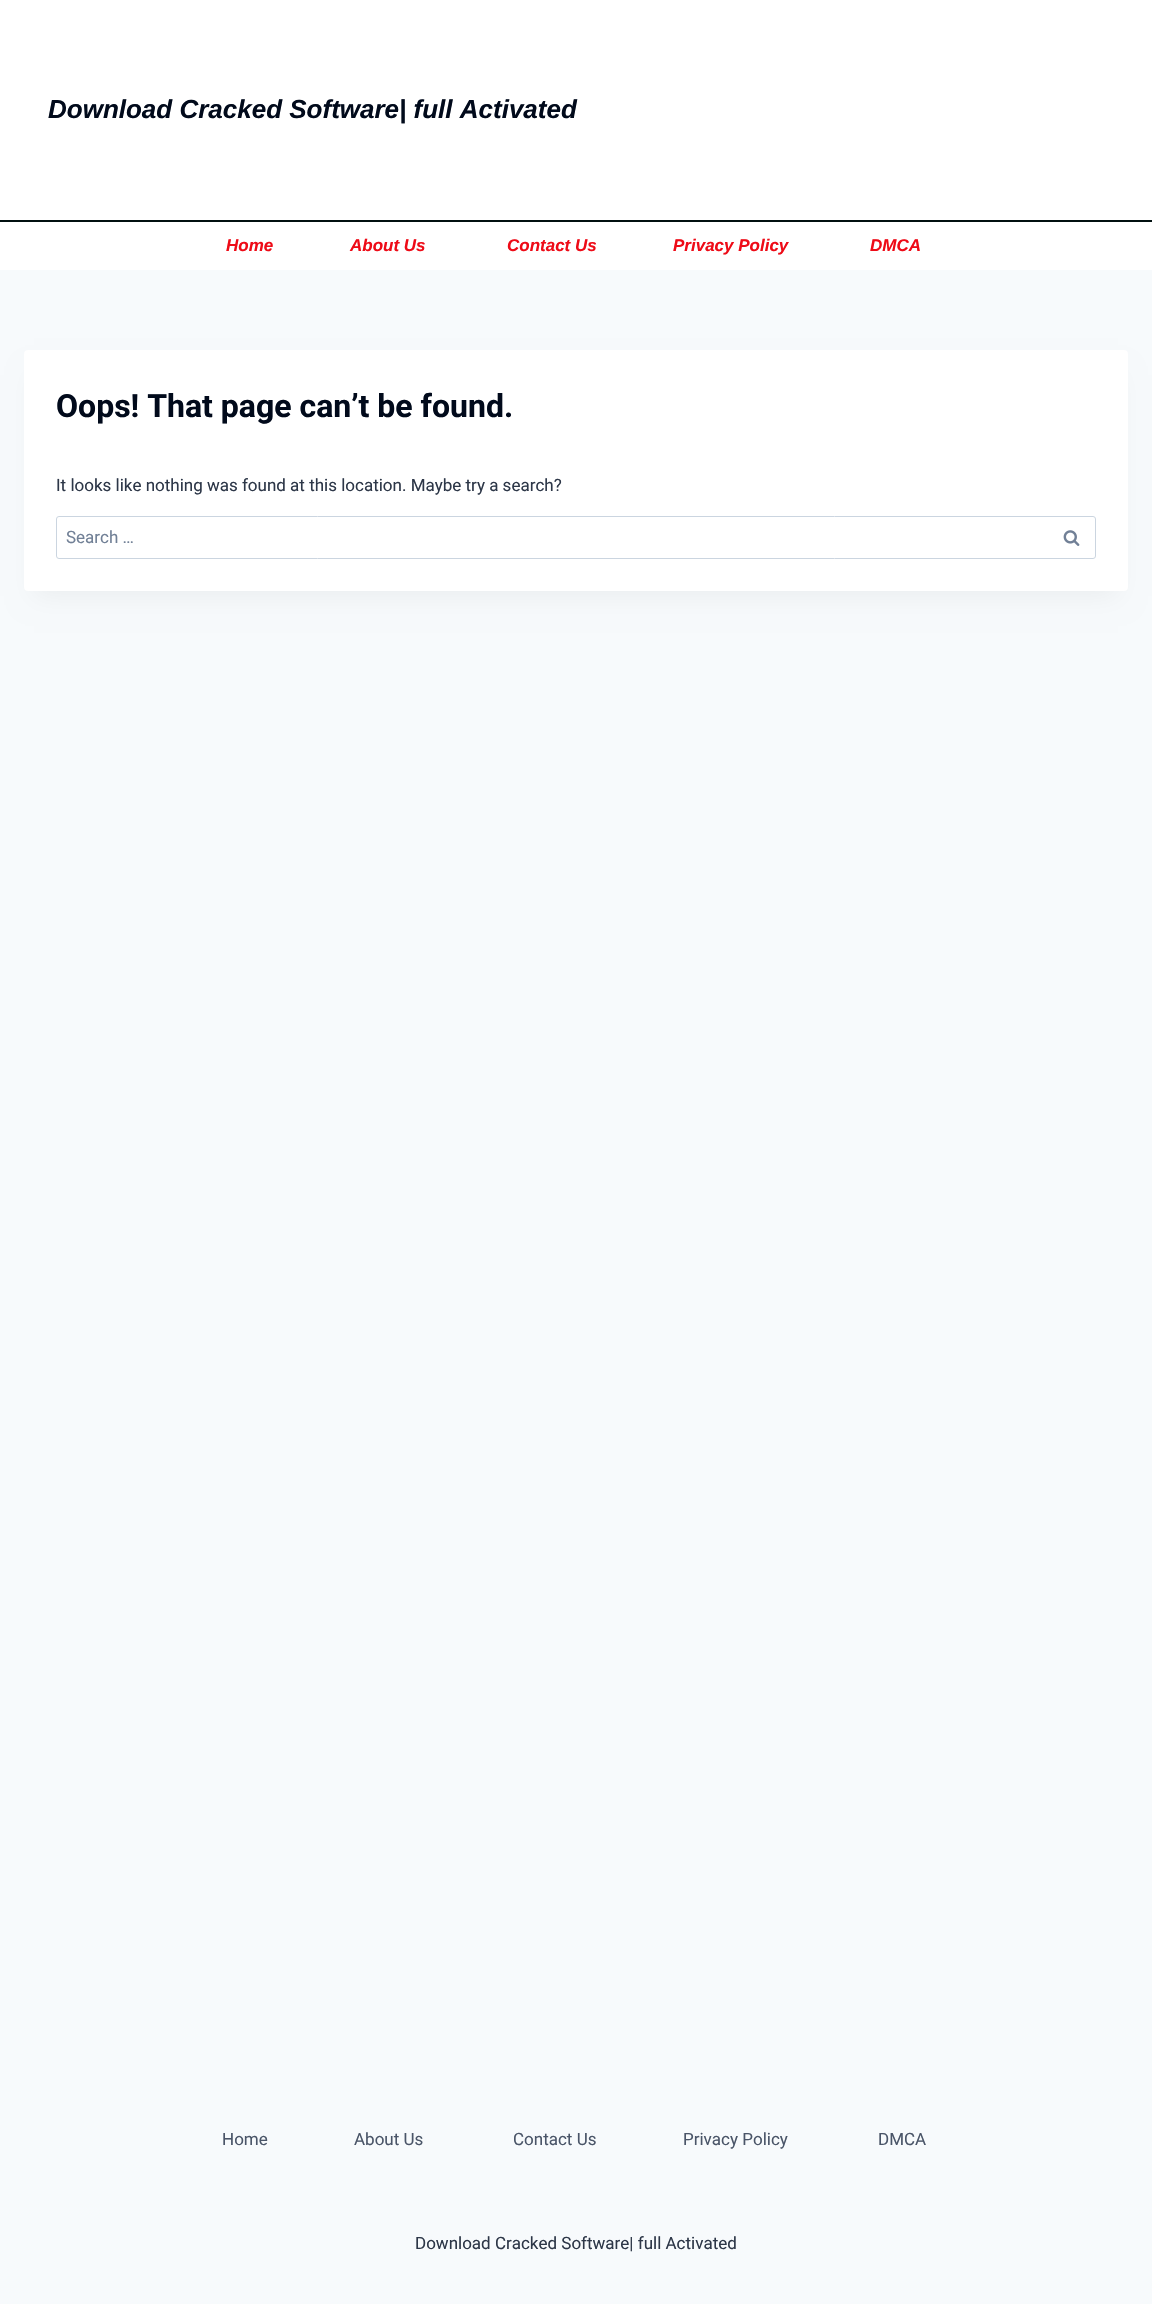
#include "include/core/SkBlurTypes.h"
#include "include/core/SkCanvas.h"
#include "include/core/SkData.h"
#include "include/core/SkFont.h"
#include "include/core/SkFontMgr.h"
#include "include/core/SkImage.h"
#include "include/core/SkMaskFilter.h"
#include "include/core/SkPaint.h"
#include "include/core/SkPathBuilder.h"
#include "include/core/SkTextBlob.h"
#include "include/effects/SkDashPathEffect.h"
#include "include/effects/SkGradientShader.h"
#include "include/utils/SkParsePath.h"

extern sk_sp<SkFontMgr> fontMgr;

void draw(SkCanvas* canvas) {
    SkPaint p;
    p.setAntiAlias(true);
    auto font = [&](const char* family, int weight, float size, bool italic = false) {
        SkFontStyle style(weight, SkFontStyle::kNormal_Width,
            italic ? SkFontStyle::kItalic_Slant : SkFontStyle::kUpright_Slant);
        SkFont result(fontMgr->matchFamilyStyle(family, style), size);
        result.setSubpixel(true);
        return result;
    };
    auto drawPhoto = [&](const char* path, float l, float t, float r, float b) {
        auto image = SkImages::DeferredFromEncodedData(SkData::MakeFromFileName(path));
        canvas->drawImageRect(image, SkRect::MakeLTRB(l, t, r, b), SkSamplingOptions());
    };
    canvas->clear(0xFFF7FAFC);
    p.setColor(0xFFFFFFFF);
    canvas->drawRect(SkRect::MakeLTRB(0, 0, 1152, 270), p);
    auto font1 = font("Liberation Sans", 700, 26, true);
    p.setColor(0xFF010A1B);
    canvas->drawString("Download Cracked Software| full Activated", 48, 118, font1, p);
    p.setColor(0xFF011010);
    canvas->drawRect(SkRect::MakeLTRB(0, 220, 1152, 222), p);
    auto font2 = font("Liberation Sans", 700, 17, true);
    p.setColor(0xFFEE0B17);
    {
        const struct { const char* s; float x, y; } items[] = {
            {"Home", 226, 251},
            {"About Us", 350, 251},
            {"Contact Us", 507, 251},
            {"Privacy Policy", 673, 251},
            {"DMCA", 870, 251},
        };
        for (auto [s, x, y] : items) {
            canvas->drawString(s, x, y, font2, p);
        }
    }
    p.setColor(0x0D000000);
    p.setMaskFilter(SkMaskFilter::MakeBlur(kNormal_SkBlurStyle, 12.5f));
    canvas->drawRect(SkRect::MakeLTRB(34, 375, 1118, 596), p);
    p.setMaskFilter(nullptr);
    p.setColor(0xFFFFFFFF);
    canvas->drawRoundRect(SkRect::MakeLTRB(24, 350, 1128, 591), 4, 4, p);
    auto font3 = font("Roboto", 700, 32);
    p.setColor(0xFF010A1B);
    canvas->drawString("Oops! That page can’t be found.", 56, 417, font3, p);
    auto font4 = font("Roboto", 400, 17);
    p.setColor(0xFF2D3748);
    canvas->drawString("It looks like nothing was found at this location. Maybe try a search?", 56, 491, font4, p);
    p.setStyle(SkPaint::kStroke_Style);
    p.setStrokeWidth(1);
    p.setColor(0xFFCBD5E0);
    canvas->drawRoundRect(SkRect::MakeLTRB(56.5f, 516.5f, 1095.5f, 558.5f), 2.5f, 2.5f, p);
    p.setStyle(SkPaint::kFill_Style);
    p.setColor(0xFF718096);
    canvas->drawString("Search …", 66, 543, font4, p);
    drawPhoto("media/1.png", 1063, 530, 1080, 546);
    p.setColor(0xFF4A5568);
    {
        const struct { const char* s; float x, y; } items[] = {
            {"Home", 222, 2145},
            {"About Us", 354, 2145},
            {"Contact Us", 513, 2145},
            {"Privacy Policy", 683, 2145},
            {"DMCA", 878, 2145},
        };
        for (auto [s, x, y] : items) {
            canvas->drawString(s, x, y, font4, p);
        }
    }
    p.setColor(0xFF2D3748);
    canvas->drawString("Download Cracked Software| full Activated", 415, 2249, font4, p);
}
